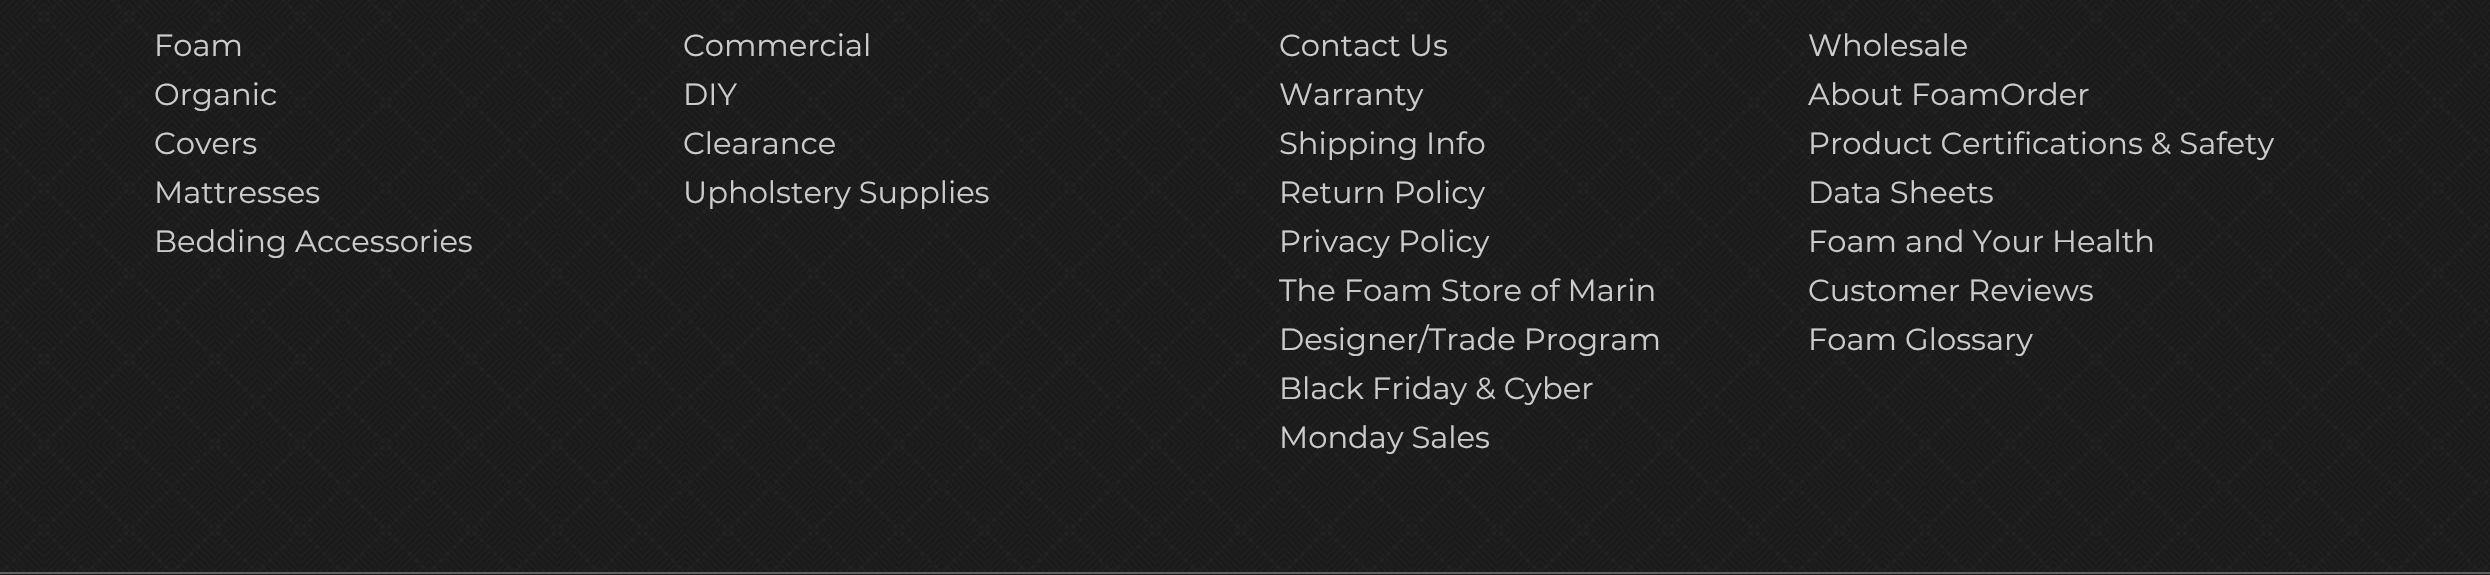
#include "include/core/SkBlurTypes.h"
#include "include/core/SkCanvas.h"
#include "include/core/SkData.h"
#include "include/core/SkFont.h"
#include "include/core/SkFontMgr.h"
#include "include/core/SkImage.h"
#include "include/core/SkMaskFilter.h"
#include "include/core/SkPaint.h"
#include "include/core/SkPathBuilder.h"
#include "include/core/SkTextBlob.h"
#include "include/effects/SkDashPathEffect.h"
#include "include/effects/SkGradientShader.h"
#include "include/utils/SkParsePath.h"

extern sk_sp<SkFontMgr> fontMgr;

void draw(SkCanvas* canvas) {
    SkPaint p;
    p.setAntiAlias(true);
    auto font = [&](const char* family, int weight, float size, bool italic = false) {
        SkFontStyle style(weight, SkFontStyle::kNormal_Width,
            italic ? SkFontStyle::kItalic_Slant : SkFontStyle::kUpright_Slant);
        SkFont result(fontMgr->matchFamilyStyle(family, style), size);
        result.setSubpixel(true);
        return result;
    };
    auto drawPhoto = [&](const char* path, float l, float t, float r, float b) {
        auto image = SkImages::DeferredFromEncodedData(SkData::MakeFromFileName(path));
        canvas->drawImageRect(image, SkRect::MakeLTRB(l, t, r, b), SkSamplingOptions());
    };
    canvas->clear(0xFFFFFFFF);
    drawPhoto("media/1.png", 0, 0, 2490, 575);
    auto font1 = font("Montserrat", 400, 30.6f);
    p.setColor(0xFFCCCCCC);
    {
        const struct { const char* s; float x, y; } items[] = {
            {"Foam", 154, 56},
            {"Organic", 154, 105},
            {"Covers", 154, 154},
            {"Mattresses", 154, 203},
            {"Bedding Accessories", 154, 252},
            {"Commercial", 683, 56},
            {"DIY", 683, 105},
            {"Clearance", 683, 154},
            {"Upholstery Supplies", 683, 203},
            {"Contact Us", 1279, 56},
            {"Warranty", 1279, 105},
            {"Shipping Info", 1279, 154},
            {"Return Policy", 1279, 203},
            {"Privacy Policy", 1279, 252},
            {"The Foam Store of Marin", 1279, 301},
            {"Designer/Trade Program", 1279, 350},
            {"Black Friday & Cyber", 1279, 399},
            {"Monday Sales", 1279, 448},
            {"Wholesale", 1808, 56},
            {"About FoamOrder", 1808, 105},
            {"Product Certifications & Safety", 1808, 154},
            {"Data Sheets", 1808, 203},
            {"Foam and Your Health", 1808, 252},
            {"Customer Reviews", 1808, 301},
            {"Foam Glossary", 1808, 350},
        };
        for (auto [s, x, y] : items) {
            canvas->drawString(s, x, y, font1, p);
        }
    }
    p.setColor(0xFF606060);
    canvas->drawRect(SkRect::MakeLTRB(0, 572, 2490, 574), p);
}
